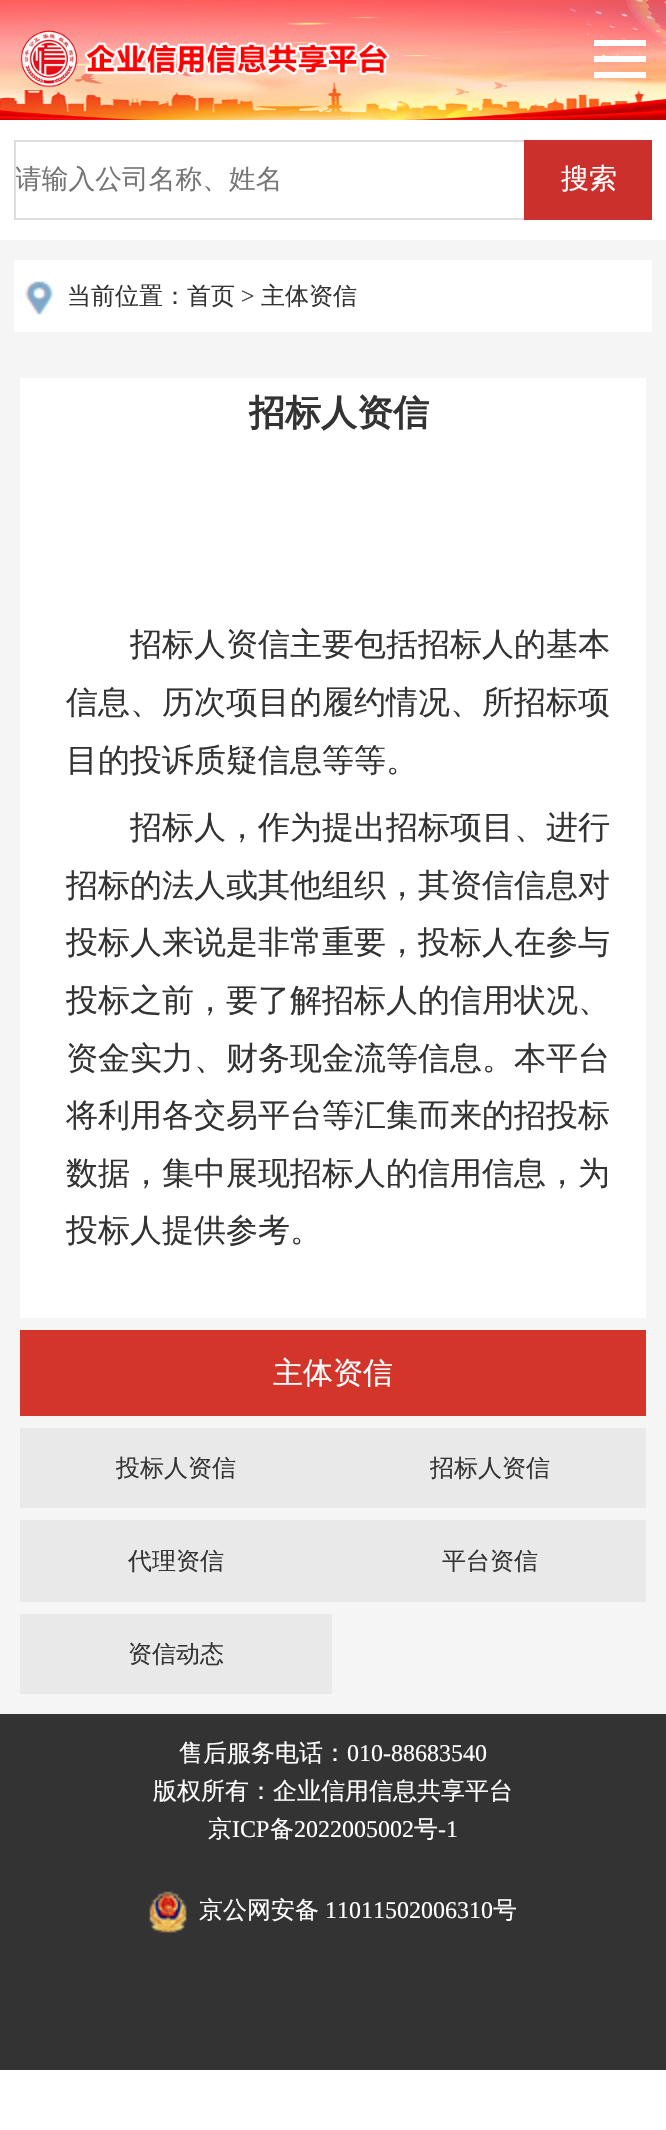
#include "include/core/SkBlurTypes.h"
#include "include/core/SkCanvas.h"
#include "include/core/SkData.h"
#include "include/core/SkFont.h"
#include "include/core/SkFontMgr.h"
#include "include/core/SkImage.h"
#include "include/core/SkMaskFilter.h"
#include "include/core/SkPaint.h"
#include "include/core/SkPathBuilder.h"
#include "include/core/SkTextBlob.h"
#include "include/effects/SkDashPathEffect.h"
#include "include/effects/SkGradientShader.h"
#include "include/utils/SkParsePath.h"

extern sk_sp<SkFontMgr> fontMgr;

void draw(SkCanvas* canvas) {
    SkPaint p;
    p.setAntiAlias(true);
    auto font = [&](const char* family, int weight, float size, bool italic = false) {
        SkFontStyle style(weight, SkFontStyle::kNormal_Width,
            italic ? SkFontStyle::kItalic_Slant : SkFontStyle::kUpright_Slant);
        SkFont result(fontMgr->matchFamilyStyle(family, style), size);
        result.setSubpixel(true);
        return result;
    };
    auto drawPhoto = [&](const char* path, float l, float t, float r, float b) {
        auto image = SkImages::DeferredFromEncodedData(SkData::MakeFromFileName(path));
        canvas->drawImageRect(image, SkRect::MakeLTRB(l, t, r, b), SkSamplingOptions());
    };
    canvas->clear(0xFFFFFFFF);
    drawPhoto("media/1.png", 0, 0, 666, 120);
    drawPhoto("media/2.png", 20, 30, 390, 88);
    {
        const struct { float l, t, r, b; SkColor color; } items[] = {
            {594, 40, 646, 46, 0xFFFFFFFF},
            {594, 56, 646, 62, 0xFFFFFFFF},
            {594, 72, 646, 78, 0xFFFFFFFF},
        };
        for (auto [l, t, r, b, color] : items) {
            p.setColor(color);
            canvas->drawRect(SkRect::MakeLTRB(l, t, r, b), p);
        }
    }
    p.setStyle(SkPaint::kStroke_Style);
    p.setStrokeWidth(2);
    p.setColor(0xFFDDDDDD);
    canvas->drawRect(SkRect::MakeLTRB(15, 141, 527, 219), p);
    canvas->save();
    canvas->clipRect(SkRect::MakeLTRB(16, 162, 526, 198));
    auto font1 = font("WenQuanYi Zen Hei", 500, 26.75f);
    p.setStyle(SkPaint::kFill_Style);
    p.setColor(0xFF757575);
    canvas->drawString("请输入公司名称、姓名", 15, 188, font1, p);
    canvas->restore();
    p.setColor(0xFFCB302C);
    canvas->drawRect(SkRect::MakeLTRB(524, 140, 652, 220), p);
    auto font2 = font("WenQuanYi Zen Hei", 500, 28);
    p.setColor(0xFFFFFFFF);
    canvas->drawString("搜索", 561, 188, font2, p);
    p.setColor(0xFFF5F5F5);
    canvas->drawRect(SkRect::MakeLTRB(0, 240, 666, 1714), p);
    p.setColor(0xFFFFFFFF);
    canvas->drawRect(SkRect::MakeLTRB(14, 260, 652, 332), p);
    drawPhoto("media/3.png", 25, 281, 53, 315);
    auto font3 = font("WenQuanYi Zen Hei", 500, 24);
    p.setColor(0xFF333333);
    canvas->drawString("当前位置：首页", 67, 304, font3, p);
    auto font4 = font("Liberation Serif", 400, 24);
    canvas->drawString(">", 241, 304, font4, p);
    canvas->drawString("主体资信", 261, 304, font3, p);
    p.setColor(0xFFFFFFFF);
    canvas->drawRect(SkRect::MakeLTRB(20, 378, 646, 1318), p);
    auto font5 = font("WenQuanYi Zen Hei", 700, 36);
    p.setColor(0xFF333333);
    canvas->drawString("招标人资信", 249, 425, font5, p);
    auto font6 = font("WenQuanYi Zen Hei", 500, 32);
    {
        const struct { const char* s; float x, y; } items[] = {
            {"招标人资信主要包括招标人的基本", 130, 655},
            {"信息、历次项目的履约情况、所招标项", 66, 713},
            {"目的投诉质疑信息等等。", 66, 771},
            {"招标人，作为提出招标项目、进行", 130, 838},
            {"招标的法人或其他组织，其资信信息对", 66, 896},
            {"投标人来说是非常重要，投标人在参与", 66, 953},
            {"投标之前，要了解招标人的信用状况、", 66, 1011},
            {"资金实力、财务现金流等信息。本平台", 66, 1069},
            {"将利用各交易平台等汇集而来的招投标", 66, 1126},
            {"数据，集中展现招标人的信用信息，为", 66, 1184},
            {"投标人提供参考。", 66, 1241},
        };
        for (auto [s, x, y] : items) {
            canvas->drawString(s, x, y, font6, p);
        }
    }
    p.setColor(0xFFD4352B);
    canvas->drawRect(SkRect::MakeLTRB(20, 1330, 646, 1416), p);
    auto font7 = font("WenQuanYi Zen Hei", 500, 30);
    p.setColor(0xFFFFFFFF);
    canvas->drawString("主体资信", 273, 1383, font7, p);
    p.setColor(0xFFE9E9E9);
    canvas->drawRect(SkRect::MakeLTRB(20, 1428, 646, 1508), p);
    p.setColor(0xFF333333);
    canvas->drawString("投标人资信", 116, 1476, font3, p);
    canvas->drawString("招标人资信", 430, 1476, font3, p);
    p.setColor(0xFFE9E9E9);
    canvas->drawRect(SkRect::MakeLTRB(20, 1520, 646, 1602), p);
    p.setColor(0xFF333333);
    canvas->drawString("代理资信", 128, 1569, font3, p);
    canvas->drawString("平台资信", 442, 1569, font3, p);
    p.setColor(0xFFE9E9E9);
    canvas->drawRect(SkRect::MakeLTRB(20, 1614, 332, 1694), p);
    p.setColor(0xFF333333);
    canvas->drawString("资信动态", 128, 1662, font3, p);
    canvas->drawRect(SkRect::MakeLTRB(0, 1714, 666, 2070), p);
    p.setColor(0xFFFFFFFF);
    canvas->drawString("售后服务电话：", 179, 1761, font3, p);
    canvas->drawString("010-88683540", 347, 1761, font4, p);
    canvas->drawString("版权所有：企业信用信息共享平台", 153, 1799, font3, p);
    canvas->drawString("京", 208, 1837, font3, p);
    canvas->drawString("ICP", 232, 1837, font4, p);
    canvas->drawString("备", 270, 1837, font3, p);
    canvas->drawString("2022005002", 294, 1837, font4, p);
    canvas->drawString("号", 414, 1837, font3, p);
    canvas->drawString("-1", 438, 1837, font4, p);
    drawPhoto("media/4.png", 149, 1891, 187, 1933);
    canvas->drawString("京公网安备", 199, 1918, font3, p);
    canvas->drawString("11011502006310", 325, 1918, font4, p);
    canvas->drawString("号", 493, 1918, font3, p);
}
